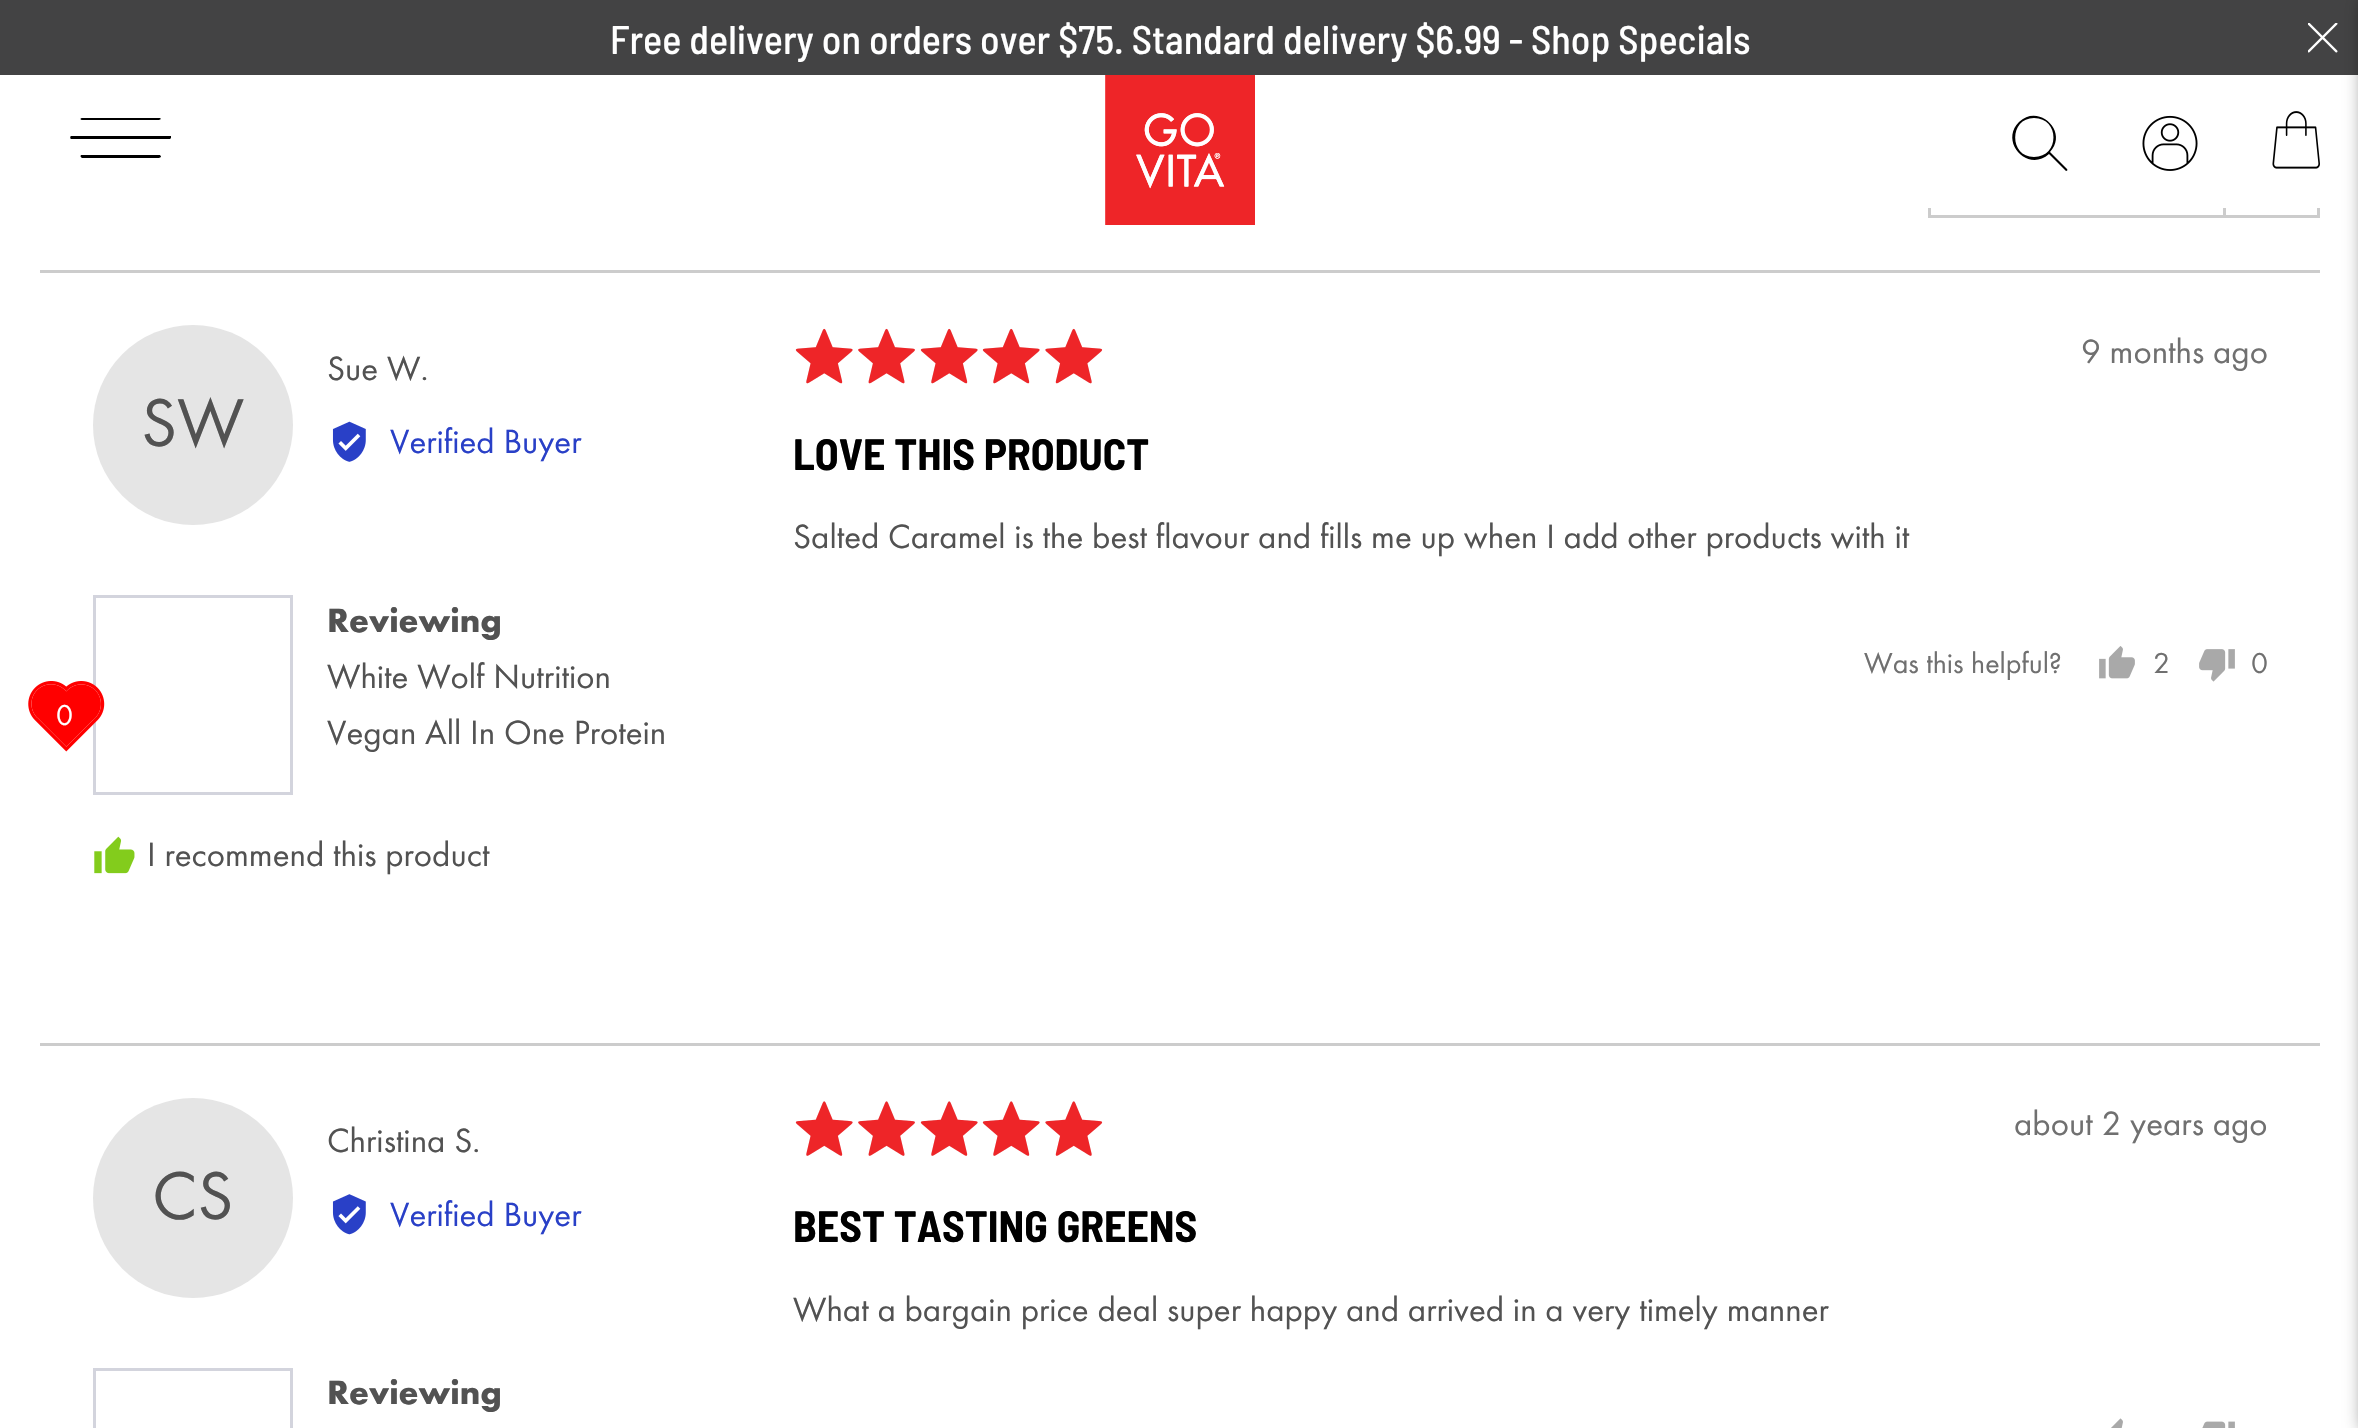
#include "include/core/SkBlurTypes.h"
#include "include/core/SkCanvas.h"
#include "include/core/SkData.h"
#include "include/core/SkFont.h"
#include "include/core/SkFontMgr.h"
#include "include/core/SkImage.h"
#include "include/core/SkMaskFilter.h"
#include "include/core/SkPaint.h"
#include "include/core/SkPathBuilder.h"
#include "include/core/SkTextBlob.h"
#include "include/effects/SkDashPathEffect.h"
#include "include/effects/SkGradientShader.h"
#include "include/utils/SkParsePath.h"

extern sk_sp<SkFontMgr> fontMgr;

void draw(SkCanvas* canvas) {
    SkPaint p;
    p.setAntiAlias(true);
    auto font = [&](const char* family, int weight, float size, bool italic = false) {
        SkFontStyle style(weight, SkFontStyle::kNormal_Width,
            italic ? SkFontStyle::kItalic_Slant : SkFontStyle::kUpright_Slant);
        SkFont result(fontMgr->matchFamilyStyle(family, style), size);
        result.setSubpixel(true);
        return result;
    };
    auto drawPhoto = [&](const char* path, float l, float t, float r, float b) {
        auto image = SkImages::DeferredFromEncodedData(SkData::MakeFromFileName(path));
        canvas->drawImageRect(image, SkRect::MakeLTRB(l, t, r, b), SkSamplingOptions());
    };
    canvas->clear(0xFFFFFFFF);
    p.setColor(0xFF434344);
    canvas->drawRect(SkRect::MakeLTRB(0, 0, 2358, 75), p);
    auto font1 = font("Barlow Semi Condensed", 500, 40);
    p.setColor(0xFFFFFFFF);
    canvas->drawString("Free delivery on orders over $75. Standard delivery $6.99 - Shop Specials", 610, 54, font1, p);
    drawPhoto("media/1.png", 2308, 23, 2338, 53);
    p.setStyle(SkPaint::kStroke_Style);
    p.setStrokeWidth(3);
    p.setColor(0xFFCCCCCC);
    canvas->drawRect(SkRect::MakeLTRB(1929.5f, 124.5f, 2318.5f, 216.5f), p);
    p.setStyle(SkPaint::kFill_Style);
    p.setColor(0xFFFFFFFF);
    canvas->drawRect(SkRect::MakeLTRB(1928, 123, 2320, 208), p);
    p.setColor(0xFF000000);
    canvas->drawPath(SkPathBuilder().moveTo(82, 118).lineTo(160, 118).cubicTo(160, 118, 161, 119, 161, 119).lineTo(159, 120).lineTo(82, 120).cubicTo(80, 120, 80, 118, 82, 118).close().moveTo(82, 155).lineTo(160, 155).cubicTo(160, 155, 161, 156, 161, 157).lineTo(159, 158).lineTo(82, 158).cubicTo(80, 157, 80, 155, 82, 155).close().moveTo(71, 136).lineTo(171, 136).lineTo(171, 138).lineTo(170, 139).lineTo(71, 139).cubicTo(70, 139, 70, 136, 71, 136).close().detach(), p);
    drawPhoto("media/2.png", 1105, 75, 1255, 225);
    canvas->drawPath(SkPathBuilder().moveTo(2067, 169).lineTo(2050, 152).cubicTo(2069, 132, 2039, 103, 2019, 122).cubicTo(1999, 142, 2028, 173, 2049, 154).lineTo(2066, 171).cubicTo(2067, 171, 2068, 170, 2067, 169).close().moveTo(2034, 157).cubicTo(2009, 157, 2009, 118, 2034, 118).cubicTo(2060, 118, 2060, 157, 2034, 157).close().detach(), p);
    drawPhoto("media/3.png", 2142, 115, 2198, 171);
    drawPhoto("media/4.png", 2272, 111, 2320, 169);
    p.setStyle(SkPaint::kStroke_Style);
    p.setColor(0xFFD3D4DD);
    canvas->drawRect(SkRect::MakeLTRB(94.5f, 596.5f, 291.5f, 793.5f), p);
    drawPhoto("media/5.png", 28, 681, 105, 752);
    auto font2 = font("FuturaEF", 400, 30);
    p.setStyle(SkPaint::kFill_Style);
    p.setColor(0xFFFFFFFF);
    canvas->drawString("0", 56, 725, font2, p);
    p.setColor(0x80000000);
    p.setMaskFilter(SkMaskFilter::MakeBlur(kNormal_SkBlurStyle, 9));
    canvas->drawRect(SkRect::MakeLTRB(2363, 0, 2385, 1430), p);
    p.setMaskFilter(nullptr);
    p.setColor(0xFFCCCCCC);
    canvas->drawRect(SkRect::MakeLTRB(2223, 208, 2226, 215), p);
    canvas->drawRect(SkRect::MakeLTRB(40, 270, 2320, 273), p);
    p.setColor(0xFFE5E5E5);
    canvas->drawCircle(193, 425, 100, p);
    auto font3 = font("FuturaEF", 400, 70);
    p.setColor(0xFF525252);
    canvas->drawString("SW", 141, 446, font3, p);
    auto font4 = font("FuturaEF", 400, 35);
    canvas->drawString("Sue W.", 327, 380, font4, p);
    drawPhoto("media/6.png", 332, 421, 366, 462);
    p.setColor(0xFF2940C7);
    canvas->drawString("Verified Buyer", 390, 453, font4, p);
    auto font5 = font("FuturaEF", 700, 35);
    p.setColor(0xFF525252);
    canvas->drawString("Reviewing", 327, 632, font5, p);
    canvas->drawString("White Wolf Nutrition", 327, 688, font4, p);
    canvas->drawString("Vegan All In One Protein", 327, 744, font4, p);
    drawPhoto("media/7.png", 94, 836, 135, 874);
    canvas->drawString("I recommend this product", 147, 866, font4, p);
    drawPhoto("media/9.png", 796, 329, 1102, 384);
    drawPhoto("media/8.png", 795, 328, 1103, 384);
    p.setColor(0xFF707070);
    canvas->drawString("9 months ago", 2081, 363, font4, p);
    auto font6 = font("Barlow Semi Condensed", 700, 43.75f);
    p.setColor(0xFF000000);
    canvas->drawString("LOVE THIS PRODUCT", 793, 470, font6, p);
    p.setColor(0xFF525252);
    canvas->drawString("Salted Caramel is the best flavour and fills me up when I add other products with it", 793, 548, font4, p);
    p.setColor(0xFF707070);
    canvas->drawString("Was this helpful?", 1864, 673, font2, p);
    drawPhoto("media/10.png", 2099, 646, 2135, 679);
    canvas->drawString("2", 2153, 673, font2, p);
    drawPhoto("media/11.png", 2199, 649, 2235, 682);
    canvas->drawString("0", 2251, 673, font2, p);
    p.setColor(0xFFCCCCCC);
    canvas->drawRect(SkRect::MakeLTRB(40, 1043, 2320, 1046), p);
    p.setColor(0xFFE5E5E5);
    canvas->drawCircle(193, 1198, 100, p);
    p.setColor(0xFF525252);
    canvas->drawString("CS", 152, 1219, font3, p);
    canvas->drawString("Christina S.", 327, 1152, font4, p);
    drawPhoto("media/12.png", 332, 1194, 366, 1235);
    p.setColor(0xFF2940C7);
    canvas->drawString("Verified Buyer", 390, 1226, font4, p);
    p.setStyle(SkPaint::kStroke_Style);
    p.setColor(0xFFD3D4DD);
    canvas->drawRect(SkRect::MakeLTRB(94.5f, 1369.5f, 291.5f, 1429.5f), p);
    p.setStyle(SkPaint::kFill_Style);
    p.setColor(0xFF525252);
    canvas->drawString("Reviewing", 327, 1404, font5, p);
    drawPhoto("media/14.png", 796, 1101, 1102, 1156);
    drawPhoto("media/13.png", 795, 1101, 1103, 1156);
    p.setColor(0xFF707070);
    canvas->drawString("about 2 years ago", 2014, 1135, font4, p);
    p.setColor(0xFF000000);
    canvas->drawString("BEST TASTING GREENS", 793, 1242, font6, p);
    p.setColor(0xFF525252);
    canvas->drawString("What a bargain price deal super happy and arrived in a very timely manner", 793, 1321, font4, p);
    drawPhoto("media/15.png", 2111, 1418, 2123, 1428);
    drawPhoto("media/16.png", 2202, 1421, 2235, 1428);
}
